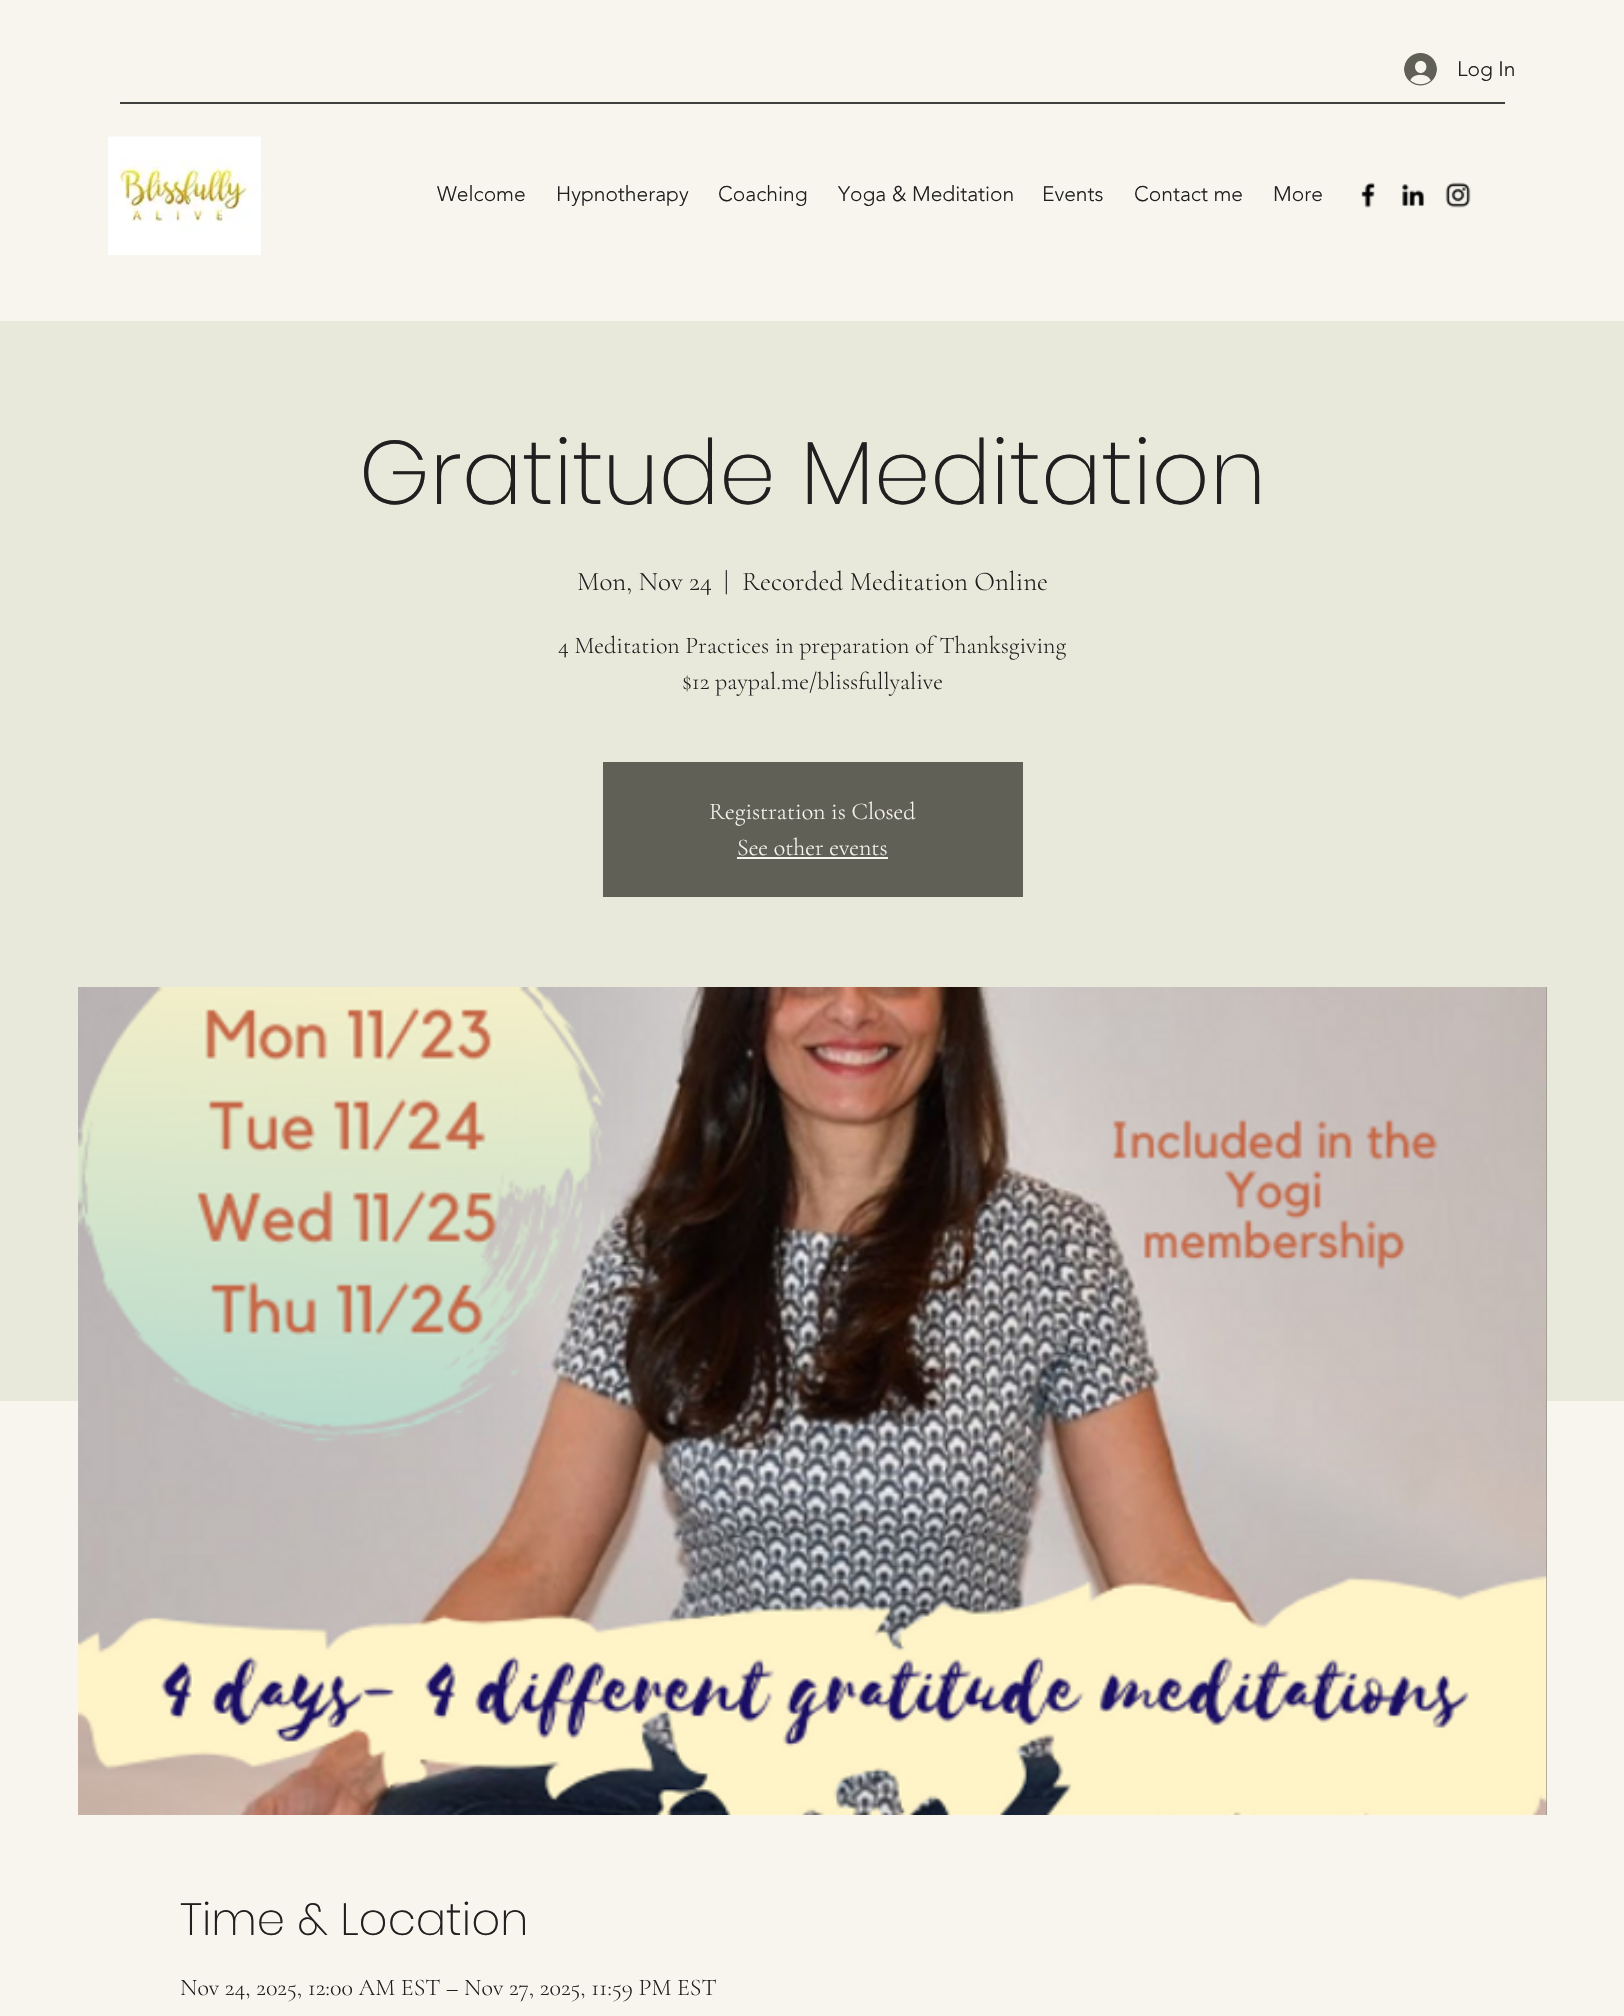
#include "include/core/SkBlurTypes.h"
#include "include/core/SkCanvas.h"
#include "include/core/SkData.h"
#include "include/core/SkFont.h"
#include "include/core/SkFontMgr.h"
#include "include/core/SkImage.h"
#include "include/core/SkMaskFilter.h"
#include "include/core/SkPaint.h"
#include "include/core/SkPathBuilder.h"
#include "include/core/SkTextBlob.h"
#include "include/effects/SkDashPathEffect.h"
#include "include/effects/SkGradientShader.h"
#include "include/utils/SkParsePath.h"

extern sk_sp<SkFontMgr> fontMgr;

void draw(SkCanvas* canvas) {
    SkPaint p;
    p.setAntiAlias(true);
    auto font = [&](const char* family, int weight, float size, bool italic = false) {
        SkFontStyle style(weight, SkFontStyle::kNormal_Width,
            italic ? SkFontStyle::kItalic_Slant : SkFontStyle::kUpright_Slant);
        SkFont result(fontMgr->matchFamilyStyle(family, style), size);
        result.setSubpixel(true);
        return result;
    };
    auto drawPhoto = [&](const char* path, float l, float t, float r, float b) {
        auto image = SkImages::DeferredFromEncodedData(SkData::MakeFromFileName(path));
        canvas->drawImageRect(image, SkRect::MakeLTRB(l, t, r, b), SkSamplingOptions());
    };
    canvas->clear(0xFFF7F5EE);
    drawPhoto("media/1.png", 1404, 53, 1437, 86);
    auto font1 = font("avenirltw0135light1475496", 300, 21);
    p.setColor(0xFF202020);
    canvas->drawString("Log In", 1457, 76, font1, p);
    p.setColor(0xFF40403F);
    canvas->drawRect(SkRect::MakeLTRB(120, 102, 1505, 104), p);
    drawPhoto("media/2.png", 108, 136, 261, 255);
    p.setColor(0xFF202020);
    {
        const struct { const char* s; float x, y; } items[] = {
            {"Welcome", 437, 201},
            {"Hypnotherapy", 556, 201},
            {"Coaching", 718, 201},
            {"Yoga & Meditation", 838, 201},
            {"Events", 1042, 201},
            {"Contact me", 1134, 201},
            {"More", 1273, 201},
        };
        for (auto [s, x, y] : items) {
            canvas->drawString(s, x, y, font1, p);
        }
    }
    drawPhoto("media/3.png", 1361, 182, 1375, 208);
    drawPhoto("media/4.png", 1402, 184, 1425, 207);
    drawPhoto("media/5.png", 1445, 182, 1471, 208);
    p.setColor(0xFFE9E9DB);
    canvas->drawRect(SkRect::MakeLTRB(0, 321, 1624, 1401), p);
    auto font2 = font("Poppins", 200, 90);
    p.setColor(0xFF202020);
    canvas->drawString("Gratitude Meditation", 359, 504, font2, p);
    auto font3 = font("Cormorant Garamond", 300, 27);
    {
        const struct { const char* s; float x, y; } items[] = {
            {"Mon, Nov 24", 577, 590},
            {"|", 724, 590},
            {"Recorded Meditation Online", 742, 590},
        };
        for (auto [s, x, y] : items) {
            canvas->drawString(s, x, y, font3, p);
        }
    }
    auto font4 = font("Cormorant Garamond", 300, 24);
    canvas->drawString("4 Meditation Practices in preparation of Thanksgiving", 558, 653, font4, p);
    canvas->drawString("$12 paypal.me/blissfullyalive", 682, 689, font4, p);
    p.setColor(0xFF616057);
    canvas->drawRect(SkRect::MakeLTRB(603, 762, 1023, 897), p);
    p.setColor(0xFFF7F5EE);
    canvas->drawString("Registration is Closed", 709, 819, font4, p);
    canvas->drawString("See other events", 737, 855, font4, p);
    canvas->drawRect(SkRect::MakeLTRB(737, 857, 888, 859), p);
    p.setColor(0xFF98978C);
    canvas->drawRect(SkRect::MakeLTRB(1546, 987, 1547, 1815), p);
    drawPhoto("media/6.png", 78, 987, 1547, 1815);
    auto font5 = font("Poppins", 200, 45);
    p.setColor(0xFF202020);
    canvas->drawString("Time & Location", 180, 1935, font5, p);
    canvas->drawString("Nov 24, 2025, 12:00 AM EST – Nov 27, 2025, 11:59 PM EST", 180, 1995, font4, p);
}
